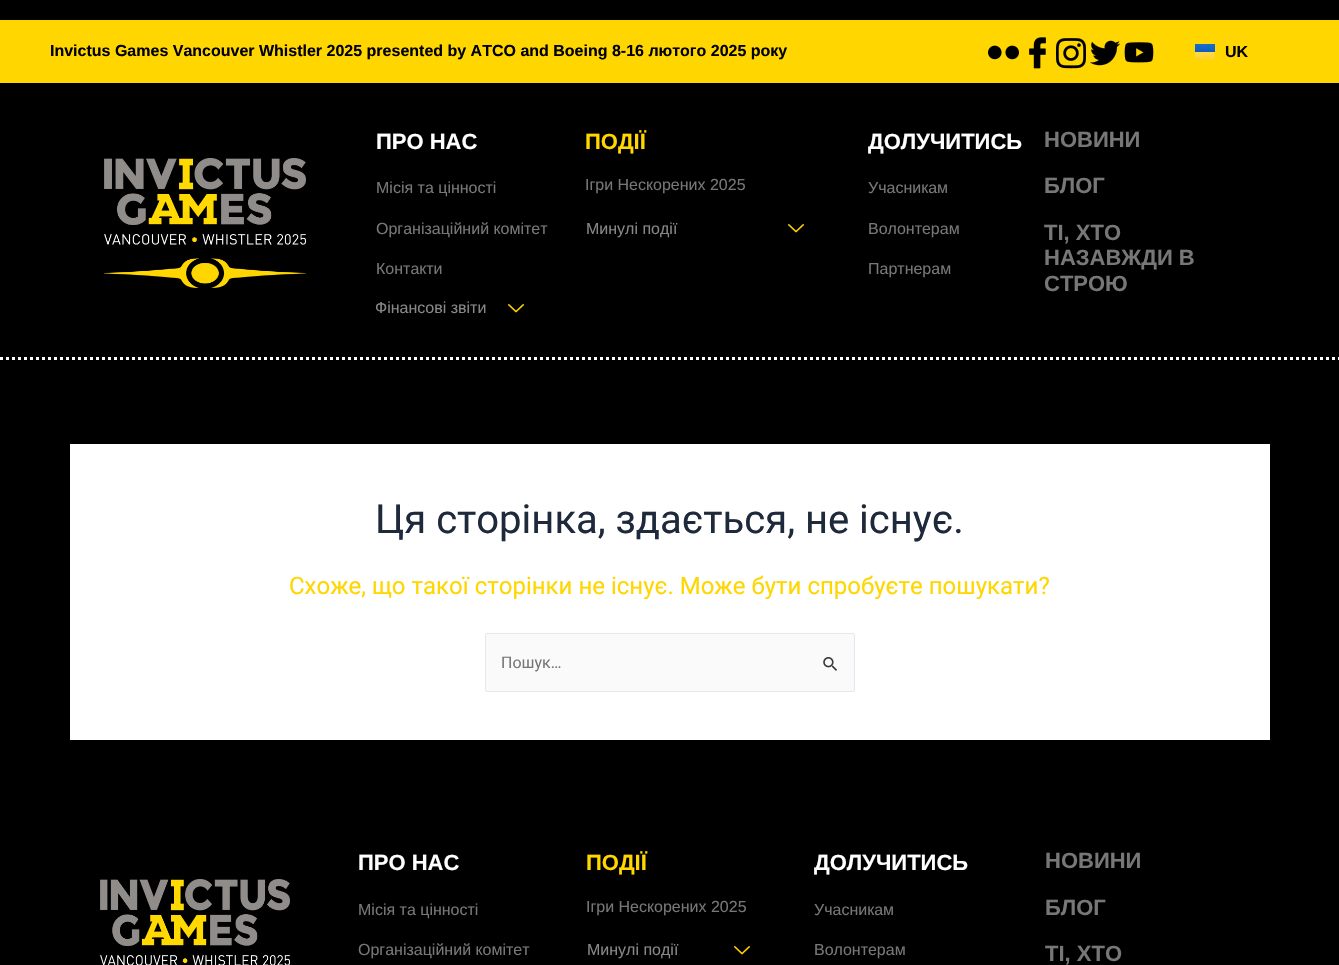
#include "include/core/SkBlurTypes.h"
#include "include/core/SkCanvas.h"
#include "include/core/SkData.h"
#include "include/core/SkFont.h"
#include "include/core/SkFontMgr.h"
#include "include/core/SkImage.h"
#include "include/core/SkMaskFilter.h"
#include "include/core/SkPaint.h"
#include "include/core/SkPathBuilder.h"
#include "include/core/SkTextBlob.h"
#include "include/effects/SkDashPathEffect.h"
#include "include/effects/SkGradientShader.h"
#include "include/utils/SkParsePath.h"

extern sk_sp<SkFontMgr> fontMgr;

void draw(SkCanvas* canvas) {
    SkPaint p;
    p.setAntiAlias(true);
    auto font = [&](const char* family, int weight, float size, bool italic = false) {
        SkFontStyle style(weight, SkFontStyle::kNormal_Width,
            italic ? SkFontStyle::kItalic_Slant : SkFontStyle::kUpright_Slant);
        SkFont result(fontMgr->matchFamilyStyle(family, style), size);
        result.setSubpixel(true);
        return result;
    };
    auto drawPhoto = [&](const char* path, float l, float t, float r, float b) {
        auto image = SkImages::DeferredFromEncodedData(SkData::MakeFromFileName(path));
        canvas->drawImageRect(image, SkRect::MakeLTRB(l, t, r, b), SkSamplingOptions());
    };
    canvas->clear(0xFF000000);
    p.setStyle(SkPaint::kStroke_Style);
    p.setStrokeWidth(3);
    p.setColor(0xFFFFFFFF);
    p.setPathEffect(SkDashPathEffect::Make({{3, 3}}, 0));
    canvas->drawPath(SkPathBuilder().moveTo(0, 358.5f).lineTo(1339, 358.5f).detach(), p);
    p.setPathEffect(nullptr);
    p.setStyle(SkPaint::kFill_Style);
    p.setColor(0xFFFFD600);
    canvas->drawRect(SkRect::MakeLTRB(0, 20, 1339, 83), p);
    auto font1 = font("Liberation Sans", 700, 16);
    p.setColor(0xFF000000);
    canvas->drawString("Invictus Games Vancouver Whistler 2025 presented by ATCO and Boeing 8-16 лютого 2025 року", 50, 56, font1, p);
    drawPhoto("media/1.png", 988, 45, 1019, 60);
    drawPhoto("media/2.png", 1029, 37, 1046, 69);
    drawPhoto("media/3.png", 1056, 38, 1086, 69);
    drawPhoto("media/4.png", 1090, 40, 1120, 66);
    drawPhoto("media/5.png", 1124, 42, 1154, 63);
    {
        const SkColor colors[] = {0xFF156DD1, 0xFF0D5EB9};
        const float stops[] = {0, 1};
        const SkPoint ends[] = {{1205, 44}, {1205, 52}};
        p.setShader(SkGradientShader::MakeLinear(ends, colors, stops, 2, SkTileMode::kClamp));
        p.setAlpha(255);
    }
    canvas->drawRect(SkRect::MakeLTRB(1195, 44, 1215, 52), p);
    {
        const SkColor colors[] = {0xFFFFD948, 0xFFFFD430};
        const float stops[] = {0, 1};
        const SkPoint ends[] = {{1205, 52}, {1205, 59}};
        p.setShader(SkGradientShader::MakeLinear(ends, colors, stops, 2, SkTileMode::kClamp));
        p.setAlpha(255);
    }
    canvas->drawRect(SkRect::MakeLTRB(1195, 52, 1215, 59), p);
    p.setShader(nullptr);
    p.setColor(0xFF000000);
    canvas->drawString("UK", 1225, 57, font1, p);
    drawPhoto("media/6.png", 104, 158, 306, 288);
    auto font2 = font("Liberation Sans", 700, 22);
    p.setColor(0xFFFFFFFF);
    canvas->drawString("ПРО НАС", 376, 149, font2, p);
    auto font3 = font("Liberation Sans", 400, 16);
    p.setColor(0xFF777777);
    {
        const struct { const char* s; float x, y; } items[] = {
            {"Місія та цінності", 376, 193},
            {"Організаційний комітет", 376, 234},
            {"Контакти", 376, 274},
        };
        for (auto [s, x, y] : items) {
            canvas->drawString(s, x, y, font3, p);
        }
    }
    p.setColor(0xFF878787);
    canvas->drawString("Фінансові звіти", 375, 313, font3, p);
    drawPhoto("media/7.png", 508, 304, 524, 313);
    p.setColor(0xFFFFD600);
    canvas->drawString("ПОДІЇ", 585, 149, font2, p);
    p.setColor(0xFF777777);
    canvas->drawString("Ігри Нескорених 2025", 585, 190, font3, p);
    p.setColor(0xFF878787);
    canvas->drawString("Минулі події", 586, 234, font3, p);
    drawPhoto("media/7.png", 788, 224, 804, 233);
    p.setColor(0xFFFFFFFF);
    canvas->drawString("ДОЛУЧИТИСЬ", 868, 149, font2, p);
    p.setColor(0xFF777777);
    {
        const struct { const char* s; float x, y; } items[] = {
            {"Учасникам", 868, 193},
            {"Волонтерам", 868, 234},
            {"Партнерам", 868, 274},
        };
        for (auto [s, x, y] : items) {
            canvas->drawString(s, x, y, font3, p);
        }
    }
    {
        const struct { const char* s; float x, y; } items[] = {
            {"НОВИНИ", 1044, 147},
            {"БЛОГ", 1044, 193},
            {"ТІ, ХТО", 1044, 240},
            {"НАЗАВЖДИ В", 1044, 265},
            {"СТРОЮ", 1044, 291},
        };
        for (auto [s, x, y] : items) {
            canvas->drawString(s, x, y, font2, p);
        }
    }
    p.setColor(0xFFFFFFFF);
    canvas->drawRect(SkRect::MakeLTRB(70, 444, 1270, 740), p);
    auto font4 = font("Roboto", 400, 40);
    p.setColor(0xFF1E293B);
    canvas->drawString("Ця сторінка, здається, не існує.", 375, 533, font4, p);
    auto font5 = font("Roboto", 400, 24);
    p.setColor(0xFFFFD600);
    canvas->drawString("Схоже, що такої сторінки не існує. Може бути спробуєте пошукати?", 289, 594, font5, p);
    p.setColor(0xFFFAFAFA);
    canvas->drawRoundRect(SkRect::MakeLTRB(485.5f, 633.5f, 854.5f, 691.5f), 1.5f, 1.5f, p);
    p.setStyle(SkPaint::kStroke_Style);
    p.setStrokeWidth(1);
    p.setColor(0xFFE2E8F0);
    canvas->drawRoundRect(SkRect::MakeLTRB(485.5f, 633.5f, 854.5f, 691.5f), 1.5f, 1.5f, p);
    auto font6 = font("Roboto", 400, 16);
    p.setStyle(SkPaint::kFill_Style);
    p.setColor(0xFF777777);
    canvas->drawString("Пошук…", 501, 668, font6, p);
    drawPhoto("media/8.png", 823, 657, 838, 671);
    drawPhoto("media/9.png", 100, 879, 290, 965);
    p.setColor(0xFFFFFFFF);
    canvas->drawString("ПРО НАС", 358, 870, font2, p);
    p.setColor(0xFF777777);
    canvas->drawString("Місія та цінності", 358, 915, font3, p);
    canvas->drawString("Організаційний комітет", 358, 955, font3, p);
    p.setColor(0xFFFFD600);
    canvas->drawString("ПОДІЇ", 586, 870, font2, p);
    p.setColor(0xFF777777);
    canvas->drawString("Ігри Нескорених 2025", 586, 912, font3, p);
    p.setColor(0xFF878787);
    canvas->drawString("Минулі події", 587, 955, font3, p);
    drawPhoto("media/7.png", 734, 946, 750, 955);
    p.setColor(0xFFFFFFFF);
    canvas->drawString("ДОЛУЧИТИСЬ", 814, 870, font2, p);
    p.setColor(0xFF777777);
    canvas->drawString("Учасникам", 814, 915, font3, p);
    canvas->drawString("Волонтерам", 814, 955, font3, p);
    {
        const struct { const char* s; float x, y; } items[] = {
            {"НОВИНИ", 1045, 868},
            {"БЛОГ", 1045, 915},
            {"ТІ, ХТО", 1045, 961},
        };
        for (auto [s, x, y] : items) {
            canvas->drawString(s, x, y, font2, p);
        }
    }
}
